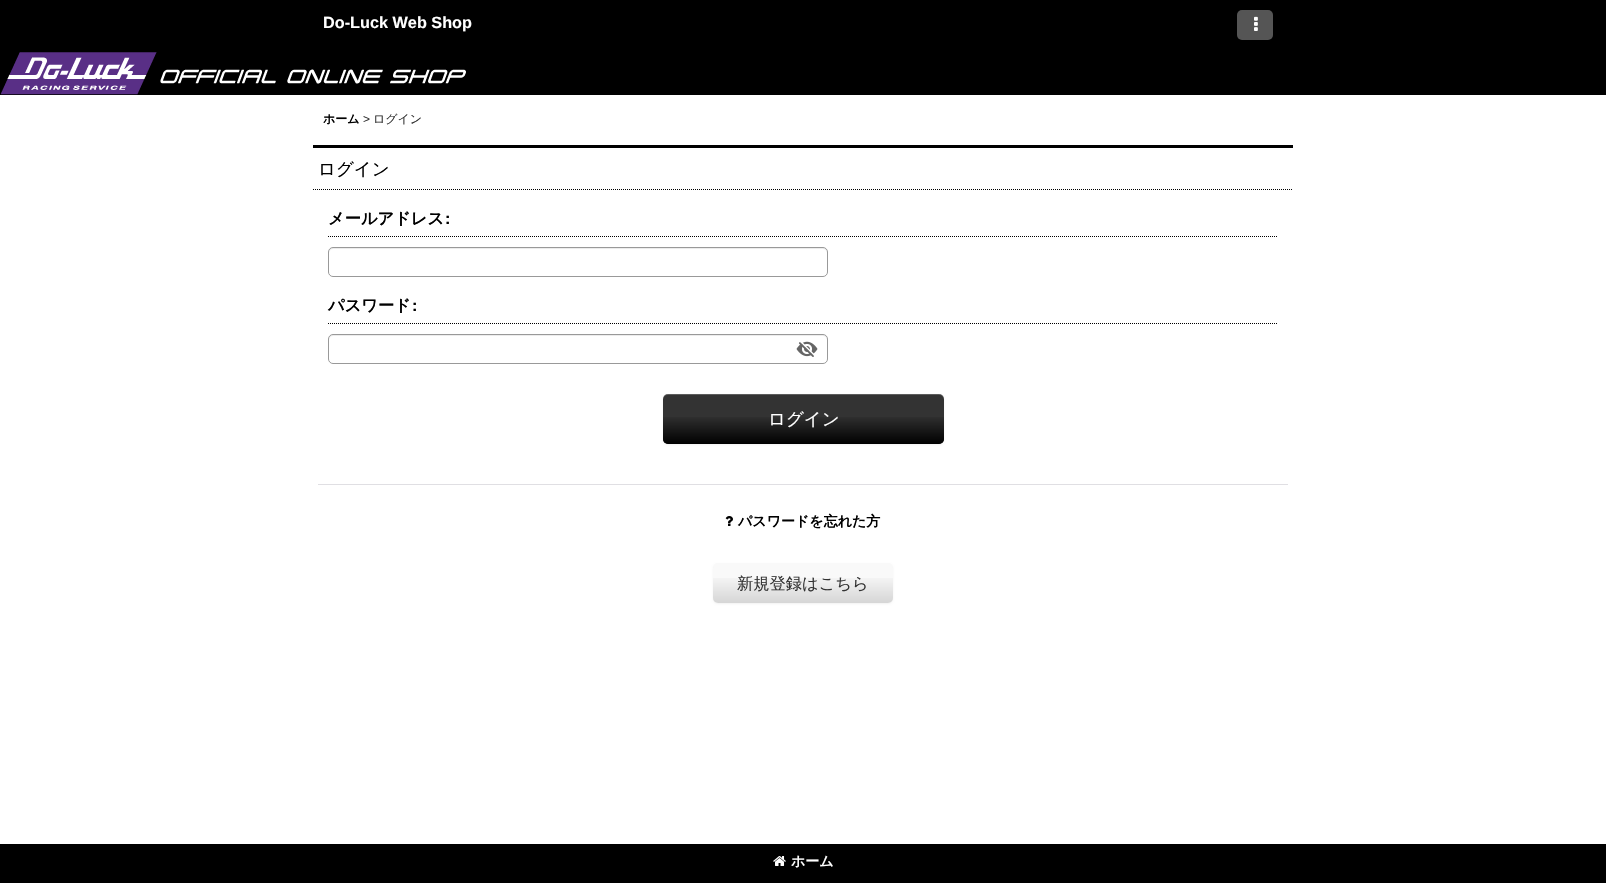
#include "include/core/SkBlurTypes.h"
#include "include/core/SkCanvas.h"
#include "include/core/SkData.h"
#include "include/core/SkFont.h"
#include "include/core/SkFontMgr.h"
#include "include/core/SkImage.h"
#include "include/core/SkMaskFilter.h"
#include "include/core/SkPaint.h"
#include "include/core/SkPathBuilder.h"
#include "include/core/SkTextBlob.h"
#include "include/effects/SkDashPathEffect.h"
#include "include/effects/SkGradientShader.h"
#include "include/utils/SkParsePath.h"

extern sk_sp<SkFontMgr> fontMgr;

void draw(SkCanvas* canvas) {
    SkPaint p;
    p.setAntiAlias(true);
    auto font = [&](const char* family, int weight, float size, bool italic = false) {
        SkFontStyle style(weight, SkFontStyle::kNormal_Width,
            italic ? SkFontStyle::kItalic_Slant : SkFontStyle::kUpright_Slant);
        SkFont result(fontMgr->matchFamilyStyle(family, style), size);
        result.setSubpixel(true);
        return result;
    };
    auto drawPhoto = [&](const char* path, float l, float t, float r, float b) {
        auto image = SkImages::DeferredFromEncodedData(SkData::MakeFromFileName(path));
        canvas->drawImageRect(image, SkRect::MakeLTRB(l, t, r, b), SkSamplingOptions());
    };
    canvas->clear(0xFFFFFFFF);
    p.setColor(0xFF000000);
    canvas->drawRect(SkRect::MakeLTRB(0, 0, 1606, 95), p);
    auto font1 = font("Liberation Sans", 700, 16.25f);
    p.setColor(0xFFFFFFFF);
    canvas->drawString("Do-Luck Web Shop", 323, 28, font1, p);
    p.setColor(0xFF555555);
    canvas->drawRoundRect(SkRect::MakeLTRB(1237, 10, 1273, 40), 5, 5, p);
    drawPhoto("media/1.png", 1254, 16, 1258, 31);
    drawPhoto("media/2.png", 0, 52, 466, 95);
    auto font2 = font("WenQuanYi Zen Hei", 700, 12);
    p.setColor(0xFF000000);
    canvas->drawString("ホーム", 323, 123, font2, p);
    auto font3 = font("Liberation Sans", 400, 12);
    p.setColor(0xFF333333);
    canvas->drawString(">", 363, 123, font3, p);
    auto font4 = font("WenQuanYi Zen Hei", 500, 12);
    canvas->drawString("ログイン", 373, 123, font4, p);
    p.setColor(0xFF000000);
    canvas->drawRect(SkRect::MakeLTRB(313, 145, 1293, 148), p);
    p.setStyle(SkPaint::kStroke_Style);
    p.setStrokeWidth(1);
    p.setPathEffect(SkDashPathEffect::Make({{1, 1}}, 0));
    canvas->drawPath(SkPathBuilder().moveTo(313, 189.5f).lineTo(1293, 189.5f).detach(), p);
    p.setPathEffect(nullptr);
    auto font5 = font("WenQuanYi Zen Hei", 500, 17.5f);
    p.setStyle(SkPaint::kFill_Style);
    canvas->drawString("ログイン", 318, 175, font5, p);
    p.setStyle(SkPaint::kStroke_Style);
    p.setPathEffect(SkDashPathEffect::Make({{1, 1}}, 0));
    canvas->drawPath(SkPathBuilder().moveTo(328, 236.5f).lineTo(1278, 236.5f).detach(), p);
    p.setPathEffect(nullptr);
    auto font6 = font("WenQuanYi Zen Hei", 700, 16.25f);
    p.setStyle(SkPaint::kFill_Style);
    canvas->drawString("メールアドレス", 328, 224, font6, p);
    canvas->drawString(":", 445, 224, font1, p);
    p.setColor(0xFFECECEC);
    canvas->drawPath(SkPathBuilder().moveTo(333, 249).lineTo(823, 249).cubicTo(825, 249, 827, 251, 827, 253).cubicTo(827, 250, 826, 248, 823, 248).lineTo(333, 248).cubicTo(330, 248, 329, 250, 329, 253).cubicTo(329, 251, 331, 249, 333, 249).close().detach(), p);
    p.setStyle(SkPaint::kStroke_Style);
    p.setColor(0xFF999999);
    canvas->drawRoundRect(SkRect::MakeLTRB(328.5f, 247.5f, 827.5f, 276.5f), 4.5f, 4.5f, p);
    p.setColor(0xFF000000);
    p.setPathEffect(SkDashPathEffect::Make({{1, 1}}, 0));
    canvas->drawPath(SkPathBuilder().moveTo(328, 323.5f).lineTo(1278, 323.5f).detach(), p);
    p.setPathEffect(nullptr);
    p.setStyle(SkPaint::kFill_Style);
    canvas->drawString("パスワード", 328, 311, font6, p);
    canvas->drawString(":", 412, 311, font1, p);
    p.setColor(0xFFECECEC);
    canvas->drawPath(SkPathBuilder().moveTo(333, 336).lineTo(823, 336).cubicTo(825, 336, 827, 338, 827, 340).cubicTo(827, 337, 826, 335, 823, 335).lineTo(333, 335).cubicTo(330, 335, 329, 337, 329, 340).cubicTo(329, 338, 331, 336, 333, 336).close().detach(), p);
    p.setStyle(SkPaint::kStroke_Style);
    p.setColor(0xFF999999);
    canvas->drawRoundRect(SkRect::MakeLTRB(328.5f, 334.5f, 827.5f, 363.5f), 4.5f, 4.5f, p);
    drawPhoto("media/3.png", 796, 341, 818, 357);
    p.setStyle(SkPaint::kFill_Style);
    p.setColor(0x0D000000);
    p.setMaskFilter(SkMaskFilter::MakeBlur(kNormal_SkBlurStyle, 1));
    canvas->drawRoundRect(SkRect::MakeLTRB(663, 395, 944, 445), 5, 5, p);
    p.setMaskFilter(nullptr);
    p.setColor(0xFF333333);
    canvas->drawRoundRect(SkRect::MakeLTRB(663, 394, 944, 444), 5, 5, p);
    drawPhoto("media/4.png", 663, 417, 944, 444);
    p.setColor(0x33FFFFFF);
    canvas->drawPath(SkPathBuilder().moveTo(668, 395).lineTo(939, 395).cubicTo(942, 395, 944, 397, 944, 400).lineTo(944, 399).cubicTo(944, 396, 942, 394, 939, 394).lineTo(668, 394).cubicTo(665, 394, 663, 396, 663, 399).lineTo(663, 400).cubicTo(663, 397, 665, 395, 668, 395).close().detach(), p);
    p.setColor(0xFFFFFFFF);
    canvas->drawString("ログイン", 768, 425, font5, p);
    p.setColor(0xFFE0DFE3);
    canvas->drawRect(SkRect::MakeLTRB(318, 484, 1288, 485), p);
    drawPhoto("media/5.png", 725, 516, 733, 526);
    auto font7 = font("WenQuanYi Zen Hei", 700, 14);
    p.setColor(0xFF000000);
    canvas->drawString("パスワードを忘れた方", 738, 526, font7, p);
    p.setColor(0x0D000000);
    p.setMaskFilter(SkMaskFilter::MakeBlur(kNormal_SkBlurStyle, 1));
    canvas->drawRoundRect(SkRect::MakeLTRB(713, 564, 893, 604), 5, 5, p);
    p.setMaskFilter(nullptr);
    p.setColor(0xFFF9F9F9);
    canvas->drawRoundRect(SkRect::MakeLTRB(713, 563, 893, 603), 5, 5, p);
    drawPhoto("media/6.png", 713, 578, 893, 603);
    auto font8 = font("WenQuanYi Zen Hei", 500, 16.25f);
    p.setColor(0xFF333333);
    canvas->drawString("新規登録はこちら", 737, 589, font8, p);
    p.setColor(0xFF000000);
    canvas->drawRect(SkRect::MakeLTRB(0, 844, 1606, 883), p);
    drawPhoto("media/7.png", 773, 856, 786, 866);
    p.setColor(0xFFFFFFFF);
    canvas->drawString("ホーム", 791, 866, font7, p);
}
